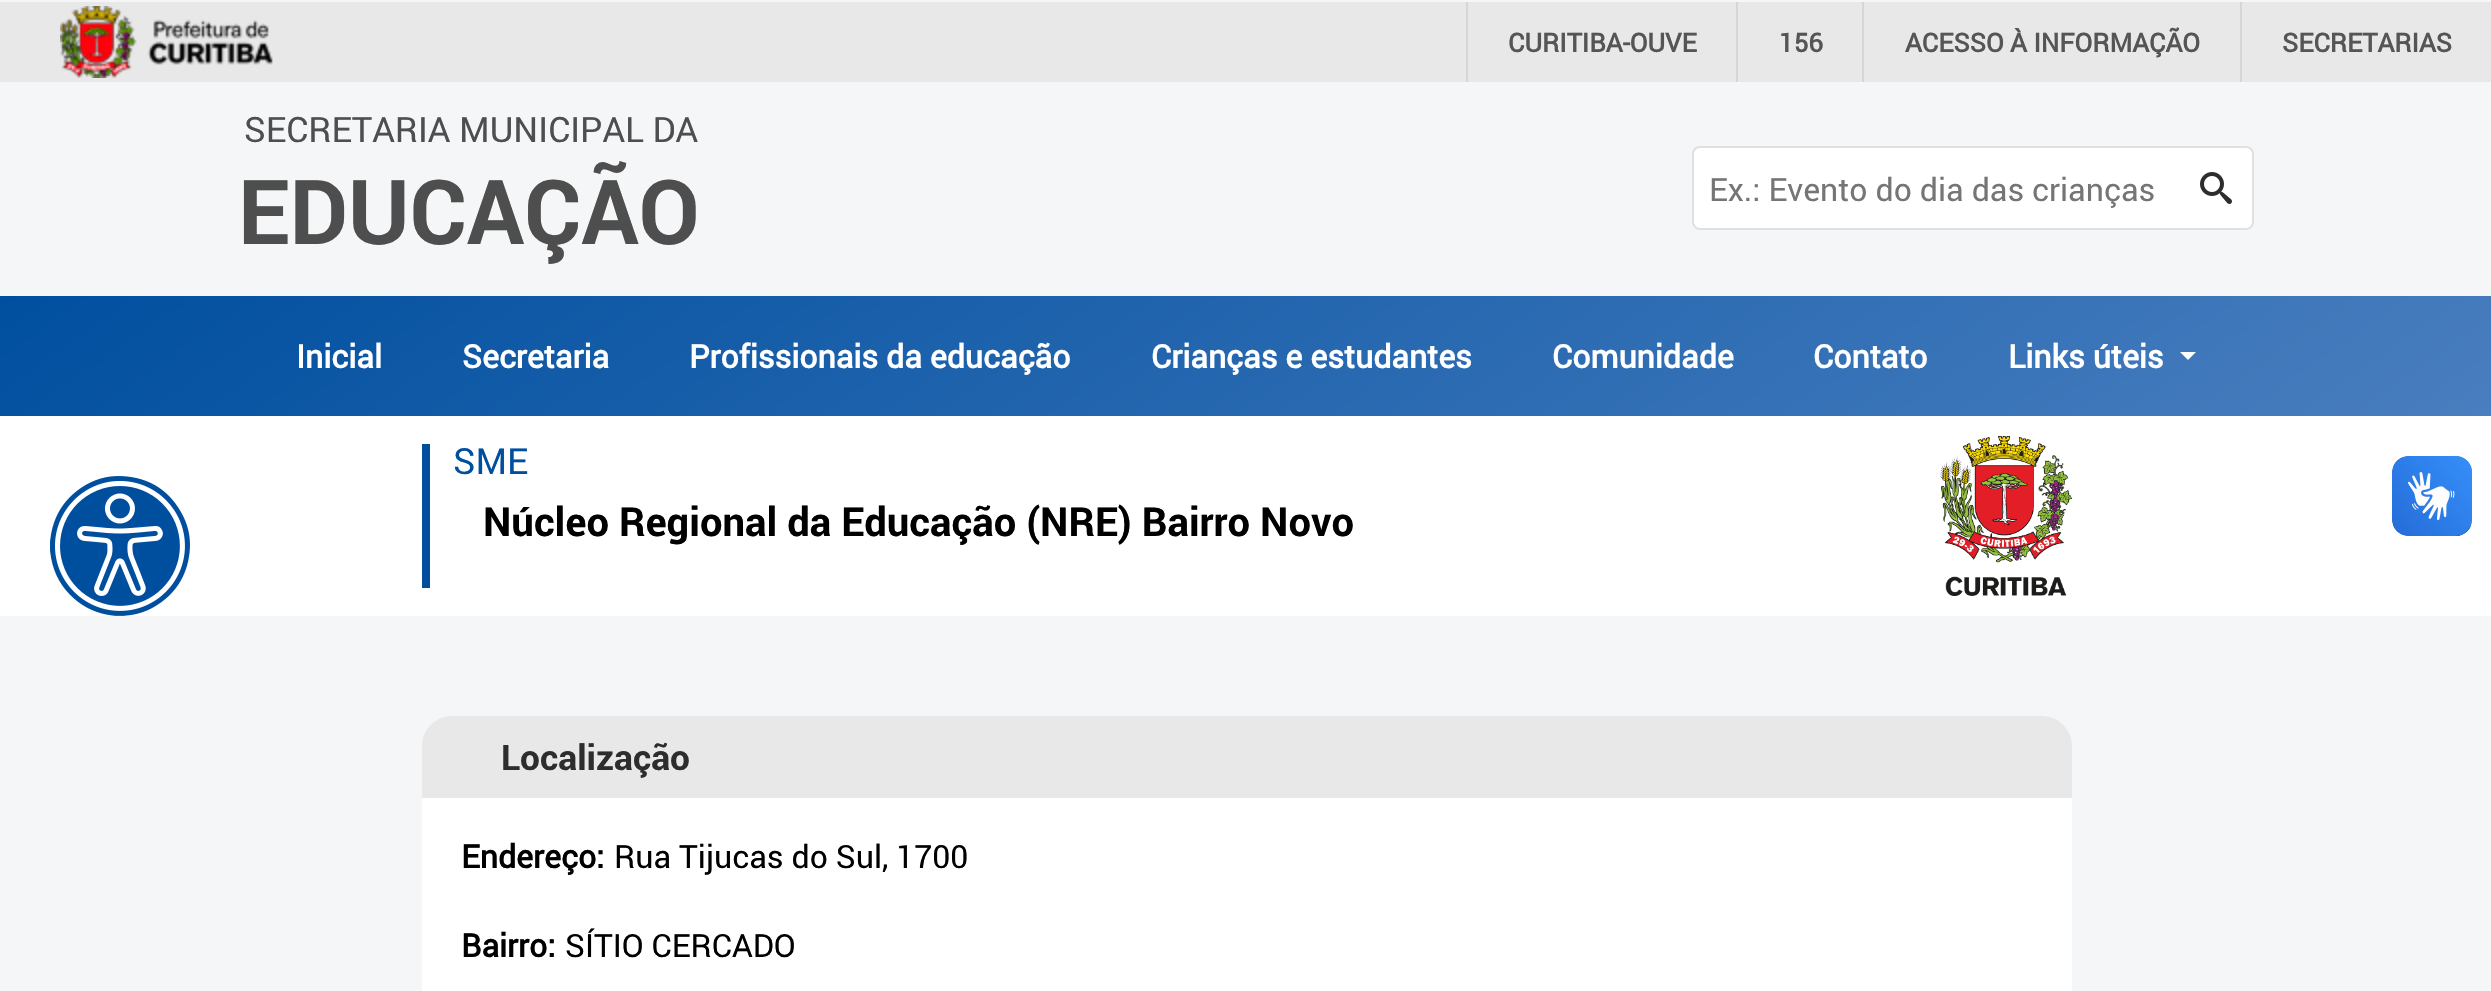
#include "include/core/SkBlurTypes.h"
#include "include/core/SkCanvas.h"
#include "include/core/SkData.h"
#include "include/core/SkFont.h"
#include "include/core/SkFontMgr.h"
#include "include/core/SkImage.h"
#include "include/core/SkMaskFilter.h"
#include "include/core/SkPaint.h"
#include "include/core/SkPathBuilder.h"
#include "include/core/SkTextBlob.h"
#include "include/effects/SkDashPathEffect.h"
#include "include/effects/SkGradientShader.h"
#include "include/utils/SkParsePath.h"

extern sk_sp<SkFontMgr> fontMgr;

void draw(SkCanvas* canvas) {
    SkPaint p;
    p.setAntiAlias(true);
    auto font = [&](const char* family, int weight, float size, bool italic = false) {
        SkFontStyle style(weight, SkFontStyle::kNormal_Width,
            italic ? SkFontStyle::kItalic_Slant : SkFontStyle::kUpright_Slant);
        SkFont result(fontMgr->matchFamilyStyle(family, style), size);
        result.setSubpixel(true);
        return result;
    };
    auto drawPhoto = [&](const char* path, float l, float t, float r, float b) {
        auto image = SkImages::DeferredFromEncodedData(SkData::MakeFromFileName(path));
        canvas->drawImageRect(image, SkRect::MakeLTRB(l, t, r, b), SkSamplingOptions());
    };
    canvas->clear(0xFFF4F6F7);
    p.setColor(0xFFE8E8E8);
    canvas->drawRect(SkRect::MakeLTRB(0, 2, 2491, 82), p);
    drawPhoto("media/1.png", 60, 6, 273, 78);
    p.setColor(0xFFD6D6D6);
    canvas->drawRect(SkRect::MakeLTRB(1466, 2, 1468, 82), p);
    auto font1 = font("Roboto", 700, 26);
    p.setColor(0xFF555555);
    canvas->drawString("CURITIBA-OUVE", 1508, 52, font1, p);
    p.setColor(0xFFD6D6D6);
    canvas->drawRect(SkRect::MakeLTRB(1736, 2, 1738, 82), p);
    p.setColor(0xFF555555);
    canvas->drawString("156", 1779, 52, font1, p);
    p.setColor(0xFFD6D6D6);
    canvas->drawRect(SkRect::MakeLTRB(1862, 2, 1864, 82), p);
    p.setColor(0xFF555555);
    canvas->drawString("ACESSO À INFORMAÇÃO", 1905, 52, font1, p);
    p.setColor(0xFFD6D6D6);
    canvas->drawRect(SkRect::MakeLTRB(2240, 2, 2242, 82), p);
    p.setColor(0xFF555555);
    canvas->drawString("SECRETARIAS", 2282, 52, font1, p);
    auto font2 = font("Roboto", 400, 34.9f);
    p.setColor(0xFF4E4E4E);
    canvas->drawString("SECRETARIA MUNICIPAL DA", 244, 142, font2, p);
    auto font3 = font("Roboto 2", 700, 89.5f);
    canvas->drawString("EDUCAÇÃO", 238, 244, font3, p);
    p.setColor(0xFFFFFFFF);
    canvas->drawRoundRect(SkRect::MakeLTRB(1693, 147, 2253, 229), 7, 7, p);
    p.setStyle(SkPaint::kStroke_Style);
    p.setStrokeWidth(2);
    p.setColor(0xFFE0E0E0);
    canvas->drawRoundRect(SkRect::MakeLTRB(1693, 147, 2253, 229), 7, 7, p);
    auto font4 = font("Roboto", 400, 32);
    p.setStyle(SkPaint::kFill_Style);
    p.setColor(0xFF757575);
    canvas->drawString("Ex.: Evento do dia das crianças", 1709, 201, font4, p);
    drawPhoto("media/2.png", 2200, 172, 2232, 204);
    {
        const SkColor colors[] = {0xFF004F9F, 0xFF497EBF};
        const float stops[] = {0, 1};
        const SkPoint ends[] = {{808, -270}, {1684, 982}};
        p.setShader(SkGradientShader::MakeLinear(ends, colors, stops, 2, SkTileMode::kClamp));
        p.setAlpha(255);
    }
    canvas->drawRect(SkRect::MakeLTRB(0, 296, 2491, 416), p);
    auto font5 = font("Roboto", 700, 32);
    p.setShader(nullptr);
    p.setColor(0xFFFFFFFF);
    {
        const struct { const char* s; float x, y; } items[] = {
            {"Inicial", 296, 368},
            {"Secretaria", 462, 368},
            {"Profissionais da educação", 689, 368},
            {"Crianças e estudantes", 1151, 368},
            {"Comunidade", 1552, 368},
            {"Contato", 1813, 368},
            {"Links úteis", 2008, 368},
        };
        for (auto [s, x, y] : items) {
            canvas->drawString(s, x, y, font5, p);
        }
    }
    canvas->drawPath(SkPathBuilder().moveTo(2180, 352).lineTo(2196, 352).lineTo(2188, 360).close().detach(), p);
    canvas->drawRect(SkRect::MakeLTRB(0, 416, 2491, 616), p);
    drawPhoto("media/3.png", 50, 476, 190, 616);
    p.setColor(0xFF004F9F);
    canvas->drawRect(SkRect::MakeLTRB(422, 444, 430, 588), p);
    auto font6 = font("Roboto", 400, 36);
    canvas->drawString("SME", 453, 474, font6, p);
    auto font7 = font("Roboto 2", 700, 40);
    p.setColor(0xFF000000);
    canvas->drawString("Núcleo Regional da Educação (NRE) Bairro Novo", 483, 536, font7, p);
    drawPhoto("media/4.png", 1940, 436, 2072, 596);
    p.setColor(0xFFFFFFFF);
    canvas->drawRoundRect(SkRect::MakeLTRB(422, 716, 2072, 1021), 30, 30, p);
    p.setColor(0xFFE8E8E8);
    canvas->drawPath(SkPathBuilder().moveTo(452, 716).lineTo(2042, 716).cubicTo(2058.5f, 716, 2072, 729.5f, 2072, 746).lineTo(2072, 798).lineTo(422, 798).lineTo(422, 746).cubicTo(422, 729.5f, 435.5f, 716, 452, 716).close().detach(), p);
    auto font8 = font("Roboto 2", 700, 35.25f);
    p.setColor(0xFF2D2D2D);
    canvas->drawString("Localização", 501, 770, font8, p);
    p.setColor(0xFF000000);
    canvas->drawString("Endereço:", 461, 868, font5, p);
    canvas->drawString("Rua Tijucas do Sul, 1700", 614, 868, font4, p);
    canvas->drawString("Bairro:", 461, 957, font5, p);
    canvas->drawString("SÍTIO CERCADO", 565, 957, font4, p);
    drawPhoto("media/5.png", 2392, 456, 2472, 536);
    drawPhoto("media/6.png", 2392, 456, 2472, 536);
}
